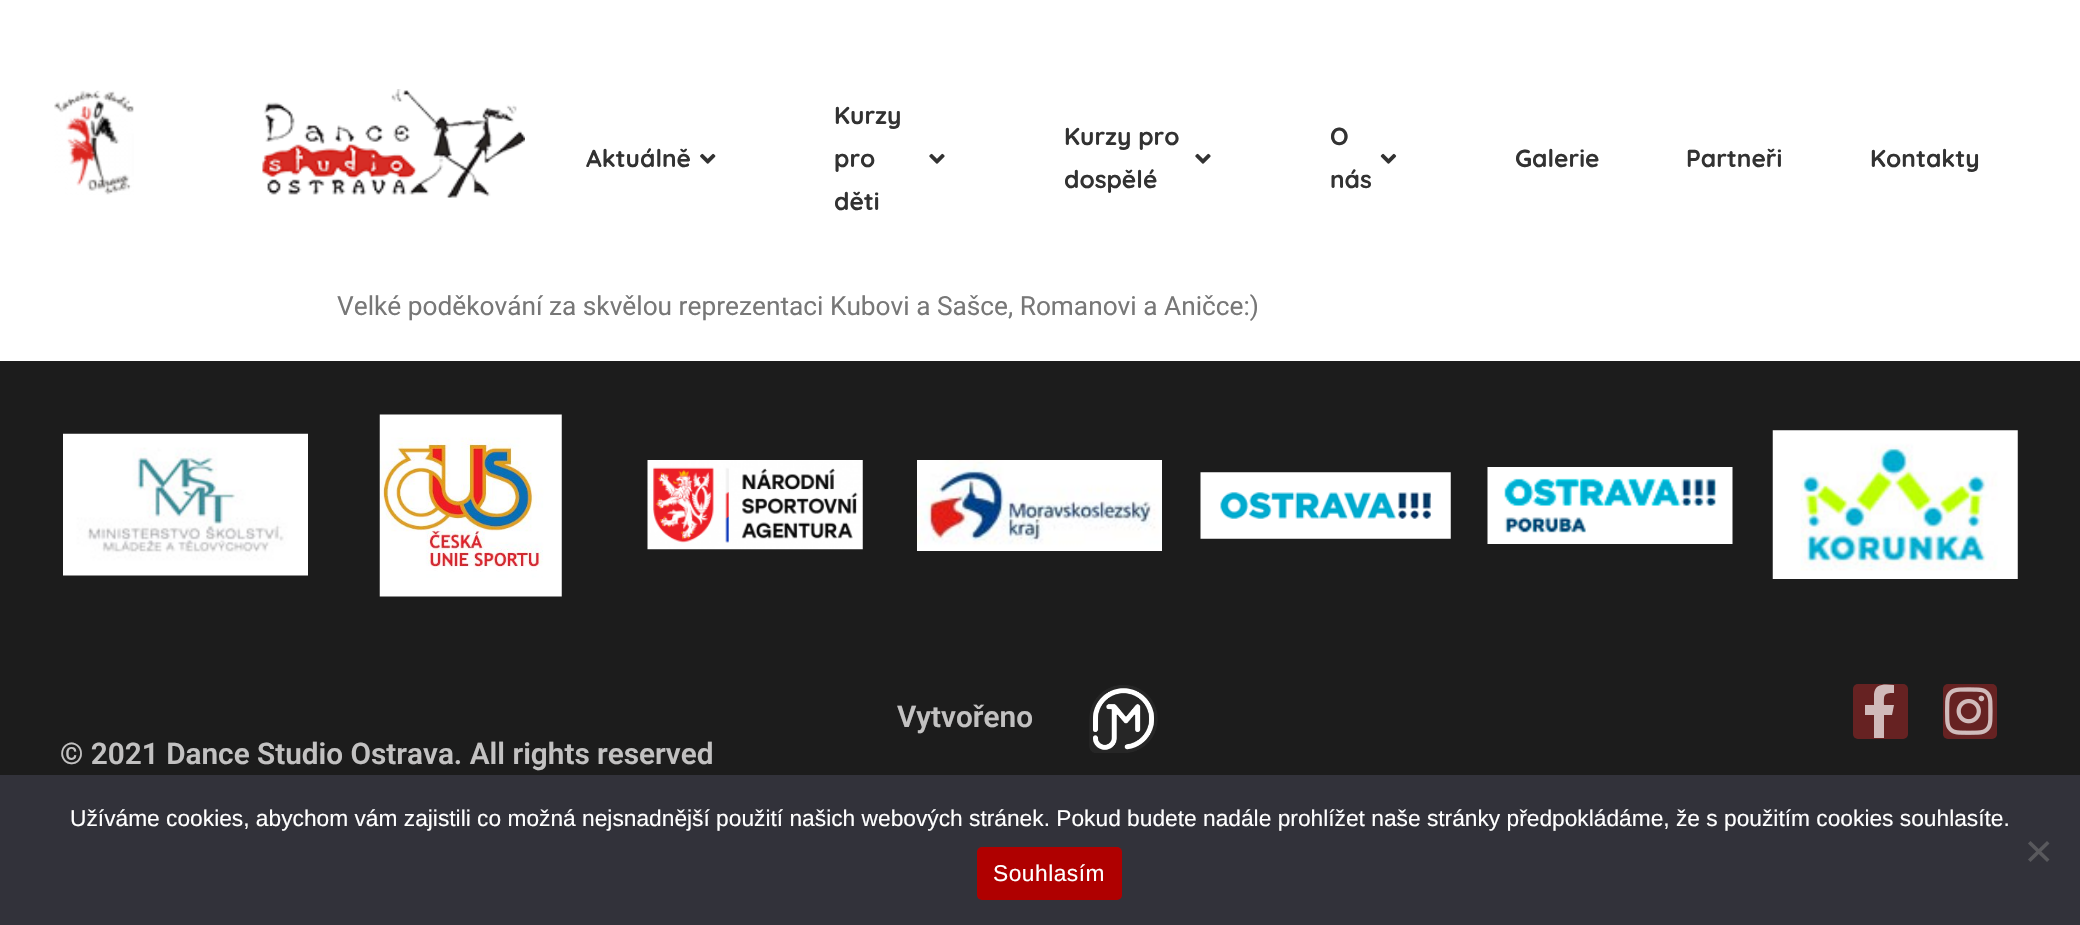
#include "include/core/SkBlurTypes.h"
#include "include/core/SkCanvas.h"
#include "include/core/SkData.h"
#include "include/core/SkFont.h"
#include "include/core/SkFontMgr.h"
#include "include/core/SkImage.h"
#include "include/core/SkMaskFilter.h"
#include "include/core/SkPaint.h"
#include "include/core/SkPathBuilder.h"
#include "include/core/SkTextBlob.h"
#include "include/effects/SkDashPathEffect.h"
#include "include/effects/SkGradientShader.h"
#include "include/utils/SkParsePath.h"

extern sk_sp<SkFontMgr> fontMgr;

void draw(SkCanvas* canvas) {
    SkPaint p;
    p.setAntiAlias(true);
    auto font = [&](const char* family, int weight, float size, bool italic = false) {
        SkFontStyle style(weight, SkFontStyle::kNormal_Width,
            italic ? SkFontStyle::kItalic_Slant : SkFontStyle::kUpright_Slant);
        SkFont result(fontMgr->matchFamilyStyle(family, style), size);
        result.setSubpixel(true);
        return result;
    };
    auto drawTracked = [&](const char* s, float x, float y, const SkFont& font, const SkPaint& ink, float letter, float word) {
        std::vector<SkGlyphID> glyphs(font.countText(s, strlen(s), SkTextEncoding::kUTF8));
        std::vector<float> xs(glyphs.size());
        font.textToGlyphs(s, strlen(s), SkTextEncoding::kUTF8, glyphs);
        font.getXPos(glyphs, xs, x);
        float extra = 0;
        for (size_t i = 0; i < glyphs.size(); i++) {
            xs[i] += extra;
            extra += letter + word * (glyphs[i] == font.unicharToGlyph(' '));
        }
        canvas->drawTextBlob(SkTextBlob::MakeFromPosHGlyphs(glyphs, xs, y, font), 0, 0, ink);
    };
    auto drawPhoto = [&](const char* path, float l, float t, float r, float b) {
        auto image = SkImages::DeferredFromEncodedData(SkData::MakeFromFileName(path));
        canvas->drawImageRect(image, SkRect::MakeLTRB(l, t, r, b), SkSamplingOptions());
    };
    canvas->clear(0xFFFFFFFF);
    drawPhoto("media/1.png", 54, 90, 134, 195);
    drawPhoto("media/2.png", 262, 89, 525, 198);
    auto font1 = font("Quicksand", 700, 24.5f);
    p.setColor(0xFF323232);
    canvas->drawString("Aktuálně", 586, 167, font1, p);
    drawPhoto("media/3.png", 700, 153, 716, 164);
    canvas->drawString("Kurzy", 834, 124, font1, p);
    canvas->drawString("pro", 834, 167, font1, p);
    drawPhoto("media/4.png", 929, 153, 945, 164);
    canvas->drawString("děti", 834, 210, font1, p);
    canvas->drawString("Kurzy pro", 1064, 145, font1, p);
    drawPhoto("media/4.png", 1195, 153, 1211, 164);
    canvas->drawString("dospělé", 1064, 188, font1, p);
    canvas->drawString("O", 1330, 145, font1, p);
    drawPhoto("media/5.png", 1380, 153, 1397, 164);
    {
        const struct { const char* s; float x, y; } items[] = {
            {"nás", 1330, 188},
            {"Galerie", 1515, 167},
            {"Partneři", 1686, 167},
            {"Kontakty", 1870, 167},
        };
        for (auto [s, x, y] : items) {
            canvas->drawString(s, x, y, font1, p);
        }
    }
    auto font2 = font("Roboto", 400, 26.25f);
    p.setColor(0xFF777777);
    canvas->drawString("Velké poděkování za skvělou reprezentaci Kubovi a Sašce, Romanovi a Aničce:)", 337, 315, font2, p);
    p.setColor(0xFF1C1C1C);
    canvas->drawRect(SkRect::MakeLTRB(0, 361, 2080, 775), p);
    drawPhoto("media/6.png", 63, 433, 308, 576);
    drawPhoto("media/7.png", 379, 414, 562, 597);
    drawPhoto("media/8.png", 647, 460, 863, 550);
    drawPhoto("media/9.png", 917, 460, 1162, 551);
    drawPhoto("media/10.png", 1200, 472, 1451, 539);
    drawPhoto("media/11.png", 1487, 467, 1733, 544);
    drawPhoto("media/12.png", 1772, 430, 2018, 579);
    auto font3 = font("Roboto", 600, 29.75f);
    p.setColor(0xFFC2C1C1);
    canvas->drawString("Vytvořeno", 897, 727, font3, p);
    drawPhoto("media/13.png", 1089, 685, 1158, 753);
    p.setColor(0xFF662222);
    canvas->drawRoundRect(SkRect::MakeLTRB(1853, 684, 1908, 739), 5, 5, p);
    p.setColor(0xFFD0BABA);
    canvas->drawPath(SkPathBuilder().moveTo(1892, 715).lineTo(1884, 715).lineTo(1884, 738).lineTo(1874, 738).lineTo(1874, 715).lineTo(1865, 715).lineTo(1865, 705).lineTo(1874, 705).lineTo(1874, 694).cubicTo(1875, 683, 1885, 684, 1894, 685).lineTo(1894, 693).cubicTo(1883, 693, 1884, 695, 1884, 705).lineTo(1894, 705).close().detach(), p);
    p.setColor(0xFF662222);
    canvas->drawRoundRect(SkRect::MakeLTRB(1943, 684, 1997, 739), 5, 5, p);
    drawPhoto("media/14.png", 1945, 687, 1993, 735);
    p.setColor(0xFFC2C1C1);
    canvas->drawString("© 2021 Dance Studio Ostrava. All rights reserved", 60, 764, font3, p);
    p.setColor(0xFF32323A);
    canvas->drawRect(SkRect::MakeLTRB(0, 775, 2080, 925), p);
    auto font4 = font("Liberation Sans", 400, 22.75f);
    p.setColor(0xFFFFFFFF);
    canvas->drawString("Užíváme cookies, abychom vám zajistili co možná nejsnadnější použití našich webových stránek. Pokud budete nadále prohlížet naše stránky předpokládáme, že s použitím cookies souhlasíte.", 70, 826, font4, p);
    p.setColor(0xFF59595D);
    canvas->drawPath(SkPathBuilder().moveTo(2047, 841).lineTo(2049.5f, 843.5f).lineTo(2030.5f, 862).lineTo(2028, 859.5f).close().detach(), p);
    canvas->drawPath(SkPathBuilder().moveTo(2028, 843.5f).lineTo(2030.5f, 841).lineTo(2049.5f, 859.5f).lineTo(2047, 862).close().detach(), p);
    p.setColor(0xFFAF0000);
    canvas->drawRoundRect(SkRect::MakeLTRB(977, 847, 1122, 900), 5, 5, p);
    p.setColor(0xFFFFFFFF);
    drawTracked("Souhlasím", 993, 881, font4, p, 0.5f, 0);
}
